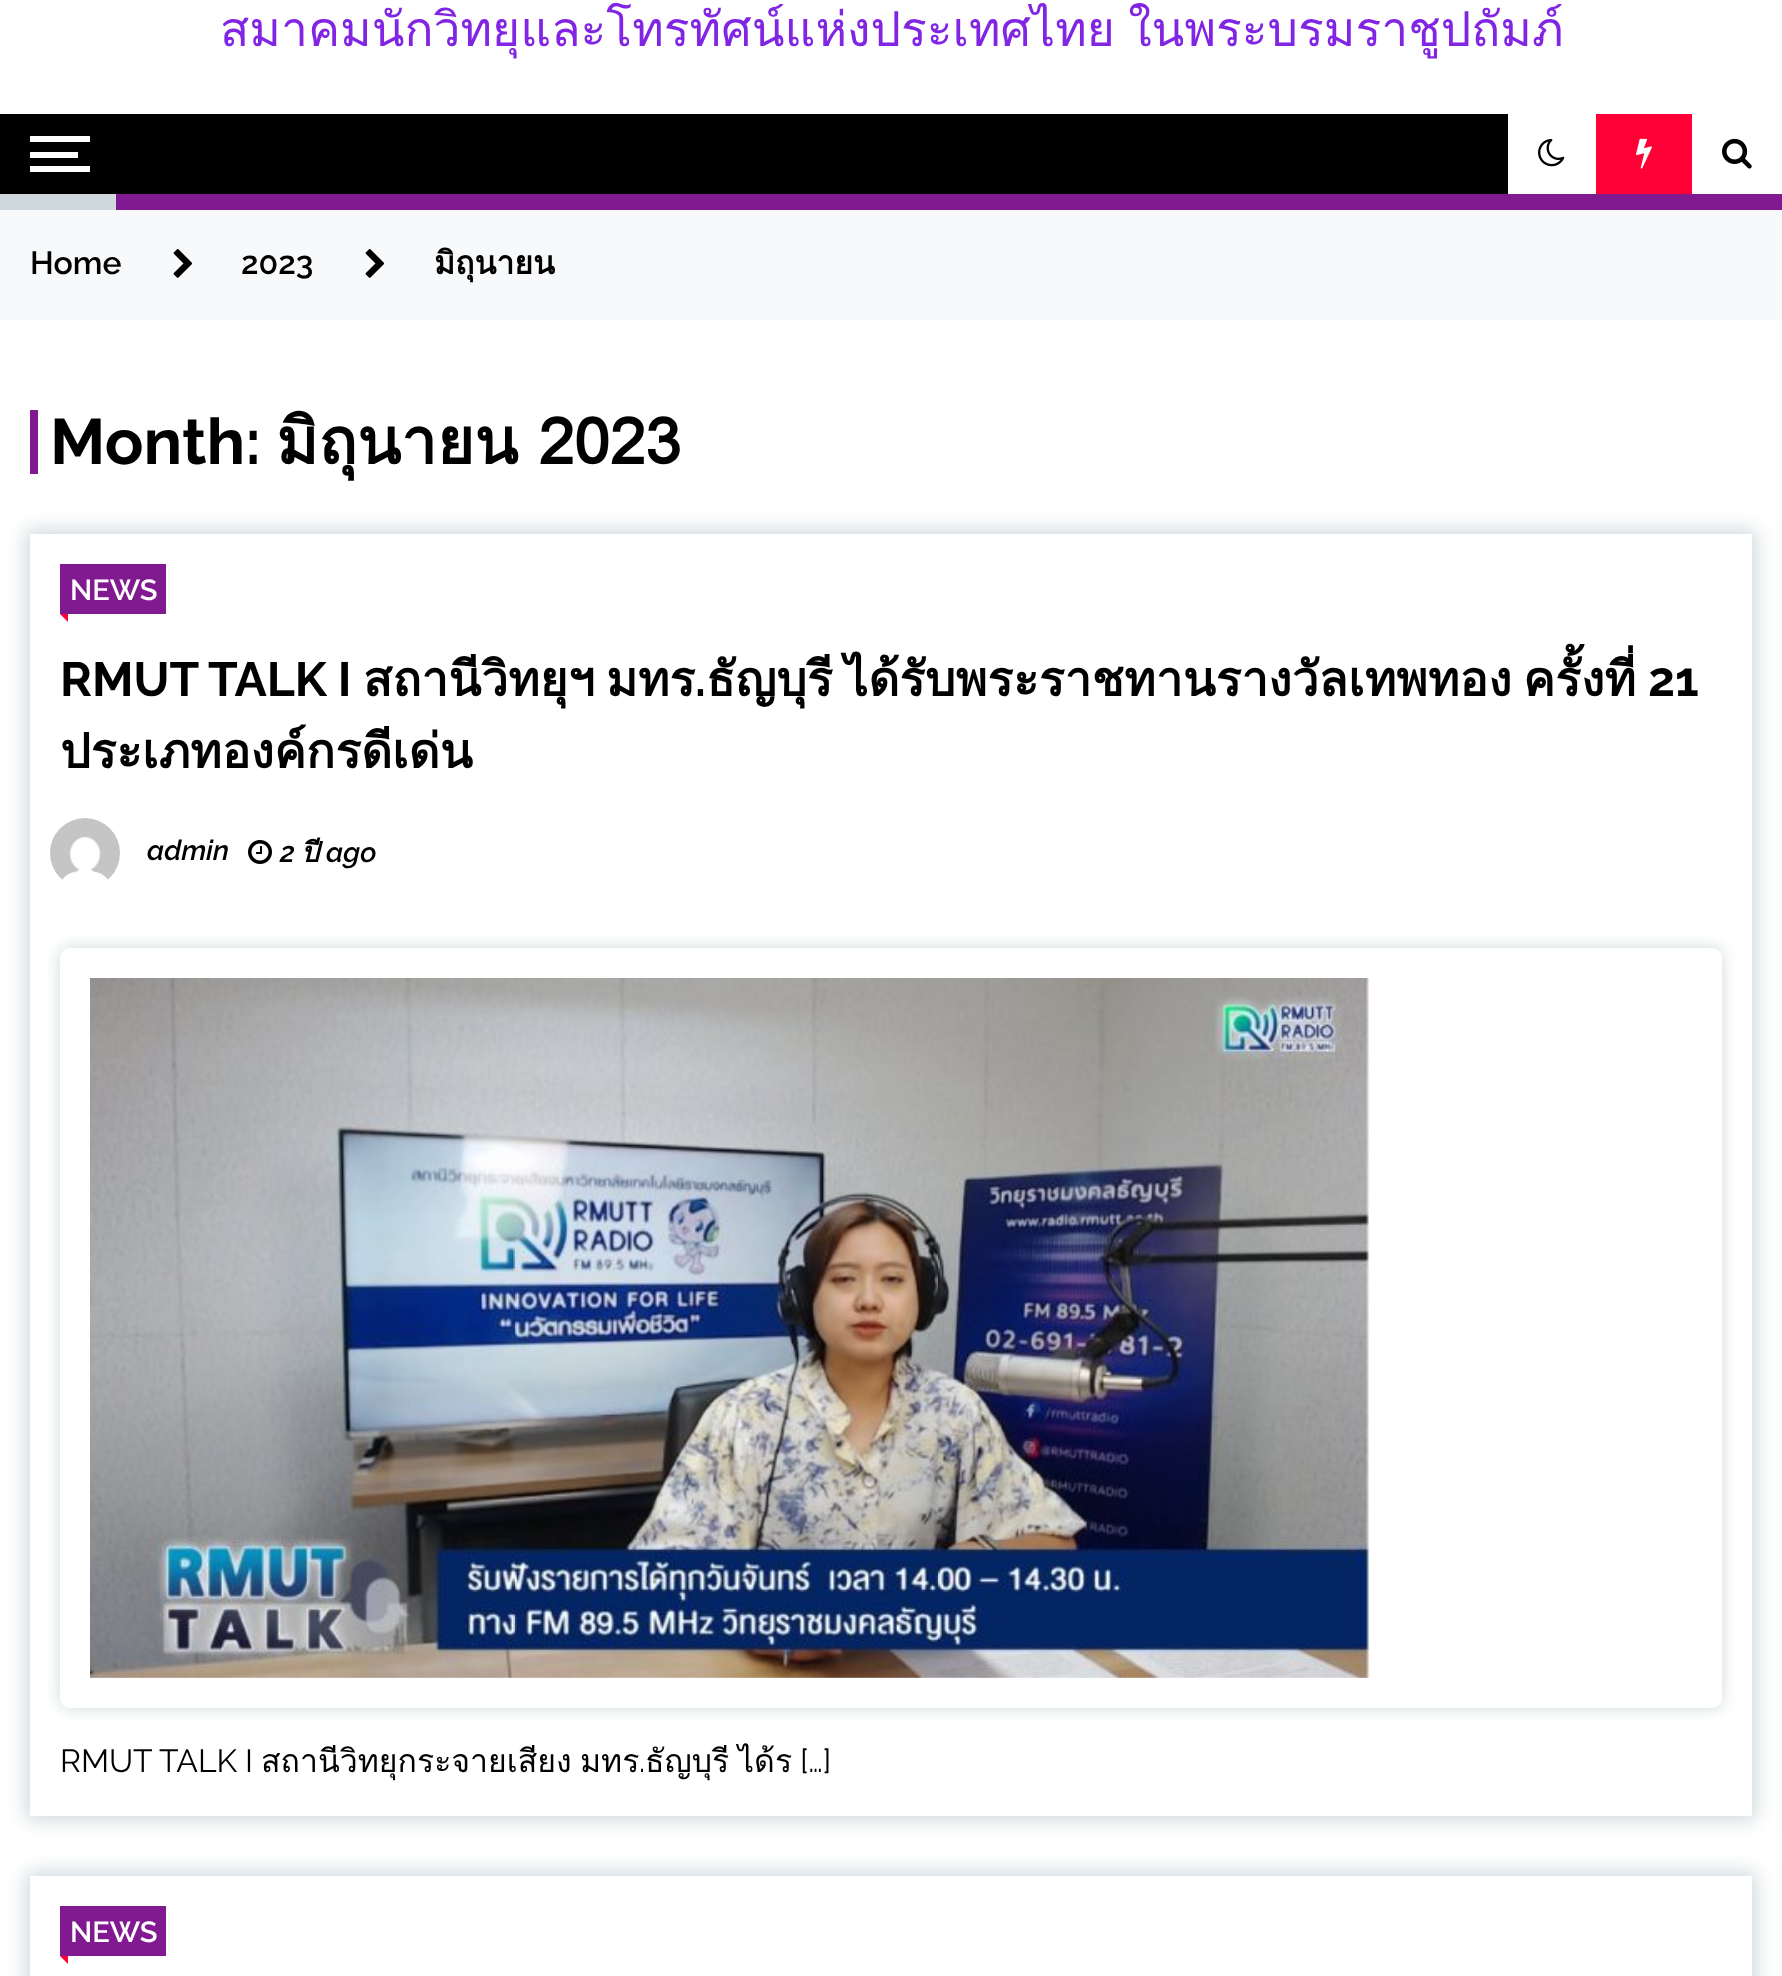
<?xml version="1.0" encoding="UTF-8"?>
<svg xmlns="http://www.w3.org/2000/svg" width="1782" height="1976">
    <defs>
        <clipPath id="clip1"><path d="M 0 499 H 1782 V 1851 H 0 Z M 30 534 H 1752 V 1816 H 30 Z" clip-rule="evenodd"/></clipPath>
        <filter id="blur1" x="-50%" y="-200%" width="200%" height="500%"><feGaussianBlur stdDeviation="10"/></filter>
        <clipPath id="clip2"><path d="M 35 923 H 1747 V 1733 H 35 Z M 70 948 H 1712 C 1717.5 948 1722 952.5 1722 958 V 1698 C 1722 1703.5 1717.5 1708 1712 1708 H 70 C 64.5 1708 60 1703.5 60 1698 V 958 C 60 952.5 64.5 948 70 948 Z" clip-rule="evenodd"/></clipPath>
        <filter id="blur2" x="-50%" y="-200%" width="200%" height="500%"><feGaussianBlur stdDeviation="8"/></filter>
        <clipPath id="clip3"><path d="M 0 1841 H 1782 V 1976 H 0 Z M 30 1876 H 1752 V 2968 H 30 Z" clip-rule="evenodd"/></clipPath>
    </defs>
    <rect width="100%" height="100%" fill="#FFFFFF"/>
    <text x="220" y="46" word-spacing="-3" font-family="Loma" font-size="48" fill="#8224E3">สมาคมนักวิทยุและโทรทัศน์แห่งประเทศไทย ในพระบรมราชูปถัมภ์</text>
    <rect x="0" y="114" width="1508" height="80" fill="#000000"/>
    <rect x="30" y="136" width="60" height="6" fill="#FFFFFF"/>
    <rect x="30" y="166" width="60" height="6" fill="#FFFFFF"/>
    <rect x="30" y="152" width="48" height="6" fill="#FFFFFF"/>
    <image x="1538" y="138" width="27" height="29" href="img_01.png"/>
    <rect x="1596" y="114" width="96" height="80" fill="#FF0036"/>
    <image x="1636" y="138" width="16" height="31" href="img_02.png"/>
    <image x="1722" y="138" width="30" height="31" href="img_03.png"/>
    <rect x="0" y="194" width="116" height="16" fill="#CFD8DC"/>
    <rect x="116" y="194" width="1666" height="16" fill="#811A90"/>
    <rect x="0" y="210" width="1782" height="110" fill="#F8F9FA"/>
    <text x="30" y="274" font-family="Raleway" font-size="32" font-weight="600" fill="#000000">Home</text>
    <image x="173" y="249" width="20" height="29" href="img_04.png"/>
    <text x="241" y="274" font-family="Raleway" font-size="32" font-weight="600" fill="#000000">2023</text>
    <image x="365" y="249" width="20" height="29" href="img_04.png"/>
    <text x="434" y="274" font-family="Loma" font-size="32" font-weight="700" fill="#000000">มิถุนายน</text>
    <rect x="30" y="410" width="8" height="64" fill="#811A90"/>
    <text x="50" y="464" font-family="Raleway" font-size="64" font-weight="700" fill="#000000">Month:</text>
    <text x="276" y="464" word-spacing="-1" font-family="Loma" font-size="64" font-weight="700" fill="#000000">มิถุนายน 2023</text>
    <g clip-path="url(#clip1)">
        <rect x="26" y="530" width="1730" height="1290" fill="#CFD8DC" filter="url(#blur1)"/>
    </g>
    <rect x="60" y="564" width="106" height="50" fill="#811A90"/>
    <text x="70" y="600" font-family="Raleway" font-size="29" font-weight="600" fill="#FFFFFF">NEWS</text>
    <path d="M 68 614 V 622 L 60 614 Z" fill="#FF0036"/>
    <text x="60" y="696" font-family="Raleway" font-size="48" font-weight="700" fill="#000000">RMUT TALK I</text>
    <text x="363" y="696" font-family="Loma" font-size="48" font-weight="700" fill="#000000">สถานีวิทยุฯ</text>
    <text x="606" y="696" font-family="Loma" font-size="48" font-weight="700" fill="#000000">มทร</text>
    <text x="695" y="696" font-family="Raleway" font-size="48" font-weight="700" fill="#000000">.</text>
    <text x="706" y="696" font-family="Loma" font-size="48" font-weight="700" fill="#000000">ธัญบุรี</text>
    <text x="844" y="696" font-family="Loma" font-size="48" font-weight="700" fill="#000000">ได้รับพระราชทานรางวัลเทพทอง</text>
    <text x="1523" y="696" font-family="Loma" font-size="48" font-weight="700" fill="#000000">ครั้งที่</text>
    <text x="1648" y="696" font-family="Raleway" font-size="48" font-weight="700" fill="#000000">21</text>
    <text x="60" y="768" font-family="Loma" font-size="48" font-weight="700" fill="#000000">ประเภทองค์กรดีเด่น</text>
    <image x="50" y="818" width="70" height="62" href="img_05.png"/>
    <text x="147" y="860" font-family="Raleway" font-size="28" font-weight="600" font-style="italic" fill="#000000">admin</text>
    <image x="248" y="840" width="24" height="24" href="img_06.png"/>
    <text x="280" y="862" font-family="Raleway" font-size="28" font-weight="600" font-style="italic" fill="#000000">2</text>
    <text x="301" y="862" font-family="Loma" font-size="28" font-weight="700" font-style="italic" fill="#000000">ปี</text>
    <text x="326" y="862" font-family="Raleway" font-size="28" font-weight="600" font-style="italic" fill="#000000">ago</text>
    <g clip-path="url(#clip2)">
        <rect x="60" y="948" width="1662" height="760" rx="10" fill="#CFD8DC" filter="url(#blur2)"/>
    </g>
    <image x="90" y="978" width="1280" height="700" href="img_07.png"/>
    <text x="60" y="1772" font-family="Raleway" font-size="32" fill="#000000">RMUT TALK I</text>
    <text x="261" y="1772" font-family="Loma" font-size="32" fill="#000000">สถานีวิทยุกระจายเสียง</text>
    <text x="580" y="1772" font-family="Loma" font-size="32" fill="#000000">มทร</text>
    <text x="639" y="1772" font-family="Raleway" font-size="32" fill="#000000">.</text>
    <text x="645" y="1772" font-family="Loma" font-size="32" fill="#000000">ธัญบุรี</text>
    <text x="738" y="1772" font-family="Loma" font-size="32" fill="#000000">ได้ร</text>
    <text x="800" y="1772" font-family="Raleway" font-size="32" fill="#000000">[…]</text>
    <g clip-path="url(#clip3)">
        <rect x="26" y="1872" width="1730" height="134" fill="#CFD8DC" filter="url(#blur1)"/>
    </g>
    <rect x="60" y="1906" width="106" height="50" fill="#811A90"/>
    <text x="70" y="1942" font-family="Raleway" font-size="29" font-weight="600" fill="#FFFFFF">NEWS</text>
    <path d="M 68 1956 V 1964 L 60 1956 Z" fill="#FF0036"/>
</svg>
